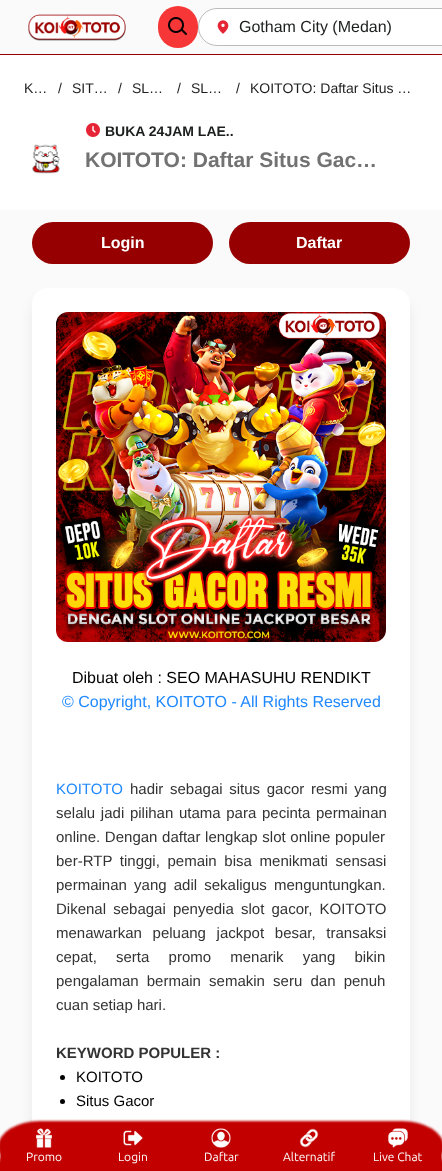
<?xml version="1.0" encoding="UTF-8"?>
<svg xmlns="http://www.w3.org/2000/svg" width="442" height="1171">
    <defs>
        <filter id="blur1" x="-50%" y="-200%" width="200%" height="500%"><feGaussianBlur stdDeviation="7.5"/></filter>
        <filter id="blur2" x="-50%" y="-200%" width="200%" height="500%"><feGaussianBlur stdDeviation="1"/></filter>
    </defs>
    <rect width="100%" height="100%" fill="#FFFFFF"/>
    <rect x="0" y="0" width="442" height="54" fill="#FAFAFA"/>
    <rect x="0" y="54" width="442" height="1" fill="#960000"/>
    <image x="28" y="14" width="98" height="27" href="img_01.png"/>
    <rect x="158" y="6" width="40" height="42" rx="20" fill="#F73737"/>
    <image x="168" y="17" width="19" height="18" href="img_02.png"/>
    <rect x="198.5" y="8.5" width="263" height="37" rx="18.5" fill="#FFFFFF" stroke="#BBBBBB"/>
    <image x="217" y="20" width="12" height="14" href="img_03.png"/>
    <text x="239" y="32" font-family="Liberation Sans" font-size="16" fill="#1C1D1D">Gotham City (Medan)</text>
    <text x="24" y="93" font-family="Liberation Sans" font-size="14" fill="#1C1D1D">K…</text>
    <text x="58" y="93" font-family="Liberation Sans" font-size="14" fill="#1C1D1D">/</text>
    <text x="72" y="93" font-family="Liberation Sans" font-size="14" fill="#1C1D1D">SIT…</text>
    <text x="118" y="93" font-family="Liberation Sans" font-size="14" fill="#1C1D1D">/</text>
    <text x="132" y="93" font-family="Liberation Sans" font-size="14" fill="#1C1D1D">SL…</text>
    <text x="177" y="93" font-family="Liberation Sans" font-size="14" fill="#1C1D1D">/</text>
    <text x="191" y="93" font-family="Liberation Sans" font-size="14" fill="#1C1D1D">SL…</text>
    <text x="236" y="93" font-family="Liberation Sans" font-size="14" fill="#1C1D1D">/</text>
    <text x="250" y="93" font-family="Liberation Sans" font-size="14" fill="#1C1D1D">KOITOTO: Daftar Situs …</text>
    <image x="32" y="144" width="28" height="30" href="img_04.png"/>
    <image x="86" y="123" width="14" height="14" href="img_05.png"/>
    <text x="105" y="136" font-family="Liberation Sans" font-size="14" font-weight="700" fill="#1C1D1D">BUKA 24JAM LAE..</text>
    <text x="85" y="167" font-family="Liberation Sans" font-size="21" font-weight="700" fill="#727272">KOITOTO: Daftar Situs Gac…</text>
    <rect x="0" y="210" width="442" height="953" fill="#FAFAFA"/>
    <rect x="32" y="222" width="181" height="42" rx="21" fill="#960000"/>
    <text x="101" y="248" font-family="Liberation Sans" font-size="16" font-weight="700" fill="#FFFFFF">Login</text>
    <rect x="229" y="222" width="181" height="42" rx="21" fill="#960000"/>
    <text x="296" y="248" font-family="Liberation Sans" font-size="16" font-weight="700" fill="#FFFFFF">Daftar</text>
    <rect x="35" y="301" width="372" height="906" rx="13" fill="#000000" fill-opacity="0.1" filter="url(#blur1)"/>
    <rect x="32" y="288" width="378" height="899" rx="16" fill="#FFFFFF"/>
    <image x="56" y="312" width="330" height="330" href="img_06.png"/>
    <text x="72" y="683" font-family="Liberation Sans" font-size="16" fill="#000000">Dibuat oleh : SEO MAHASUHU RENDIKT</text>
    <text x="62" y="707" font-family="Liberation Sans" font-size="16" fill="#2189FF">© Copyright, KOITOTO - All Rights Reserved</text>
    <text x="56" y="794" font-family="Liberation Sans" font-size="15" fill="#2189FF">KOITOTO</text>
    <text x="130" y="794" word-spacing="2.5" font-family="Liberation Sans" font-size="15" fill="#333333">hadir sebagai situs gacor resmi yang</text>
    <text font-family="Liberation Sans" font-size="15" fill="#333333">
        <tspan x="56" y="818" word-spacing="1.5">selalu jadi pilihan utama para pecinta permainan</tspan>
        <tspan x="56" y="842" word-spacing="0.5">online. Dengan daftar lengkap slot online populer</tspan>
        <tspan x="56" y="866" word-spacing="3.5">ber-RTP tinggi, pemain bisa menikmati sensasi</tspan>
        <tspan x="56" y="890" word-spacing="3">permainan yang adil sekaligus menguntungkan.</tspan>
        <tspan x="56" y="914" word-spacing="3">Dikenal sebagai penyedia slot gacor, KOITOTO</tspan>
        <tspan x="56" y="938" word-spacing="6.5">menawarkan peluang jackpot besar, transaksi</tspan>
        <tspan x="56" y="962" word-spacing="15">cepat, serta promo menarik yang bikin</tspan>
        <tspan x="56" y="986" word-spacing="4">pengalaman bermain semakin seru dan penuh</tspan>
        <tspan x="56" y="1010">cuan setiap hari.</tspan>
    </text>
    <text x="56" y="1058" font-family="Liberation Sans" font-size="15" font-weight="700" fill="#333333">KEYWORD POPULER :</text>
    <circle cx="62.5" cy="1077.5" r="2.5" fill="#000000"/>
    <text x="76" y="1082" font-family="Liberation Sans" font-size="15" fill="#000000">KOITOTO</text>
    <circle cx="62.5" cy="1101.5" r="2.5" fill="#000000"/>
    <text x="76" y="1106" font-family="Liberation Sans" font-size="15" fill="#000000">Situs Gacor</text>
    <rect x="-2" y="1121" width="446" height="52" rx="42" fill="#C20000" filter="url(#blur2)"/>
    <path d="M 40 1123 H 402 C 424 1123 442 1141 442 1163 V 1171 H 0 V 1163 C 0 1141 18 1123 40 1123 Z" fill="#C20000"/>
    <image x="36" y="1128" width="16" height="20" href="img_07.png"/>
    <text x="26" y="1161" font-family="Ubuntu" font-size="12" fill="#FFFFFF">Promo</text>
    <image x="123" y="1130" width="20" height="16" href="img_08.png"/>
    <text x="118" y="1161" font-family="Ubuntu" font-size="12" fill="#FFFFFF">Login</text>
    <image x="211" y="1128" width="20" height="20" href="img_09.png"/>
    <text x="204" y="1161" font-family="Ubuntu" font-size="12" fill="#FFFFFF">Daftar</text>
    <image x="299" y="1128" width="20" height="20" href="img_10.png"/>
    <text x="283" y="1161" font-family="Ubuntu" font-size="12" fill="#FFFFFF">Alternatif</text>
    <image x="388" y="1128" width="20" height="20" href="img_11.png"/>
    <text x="373" y="1161" font-family="Ubuntu" font-size="12" fill="#FFFFFF">Live Chat</text>
</svg>
